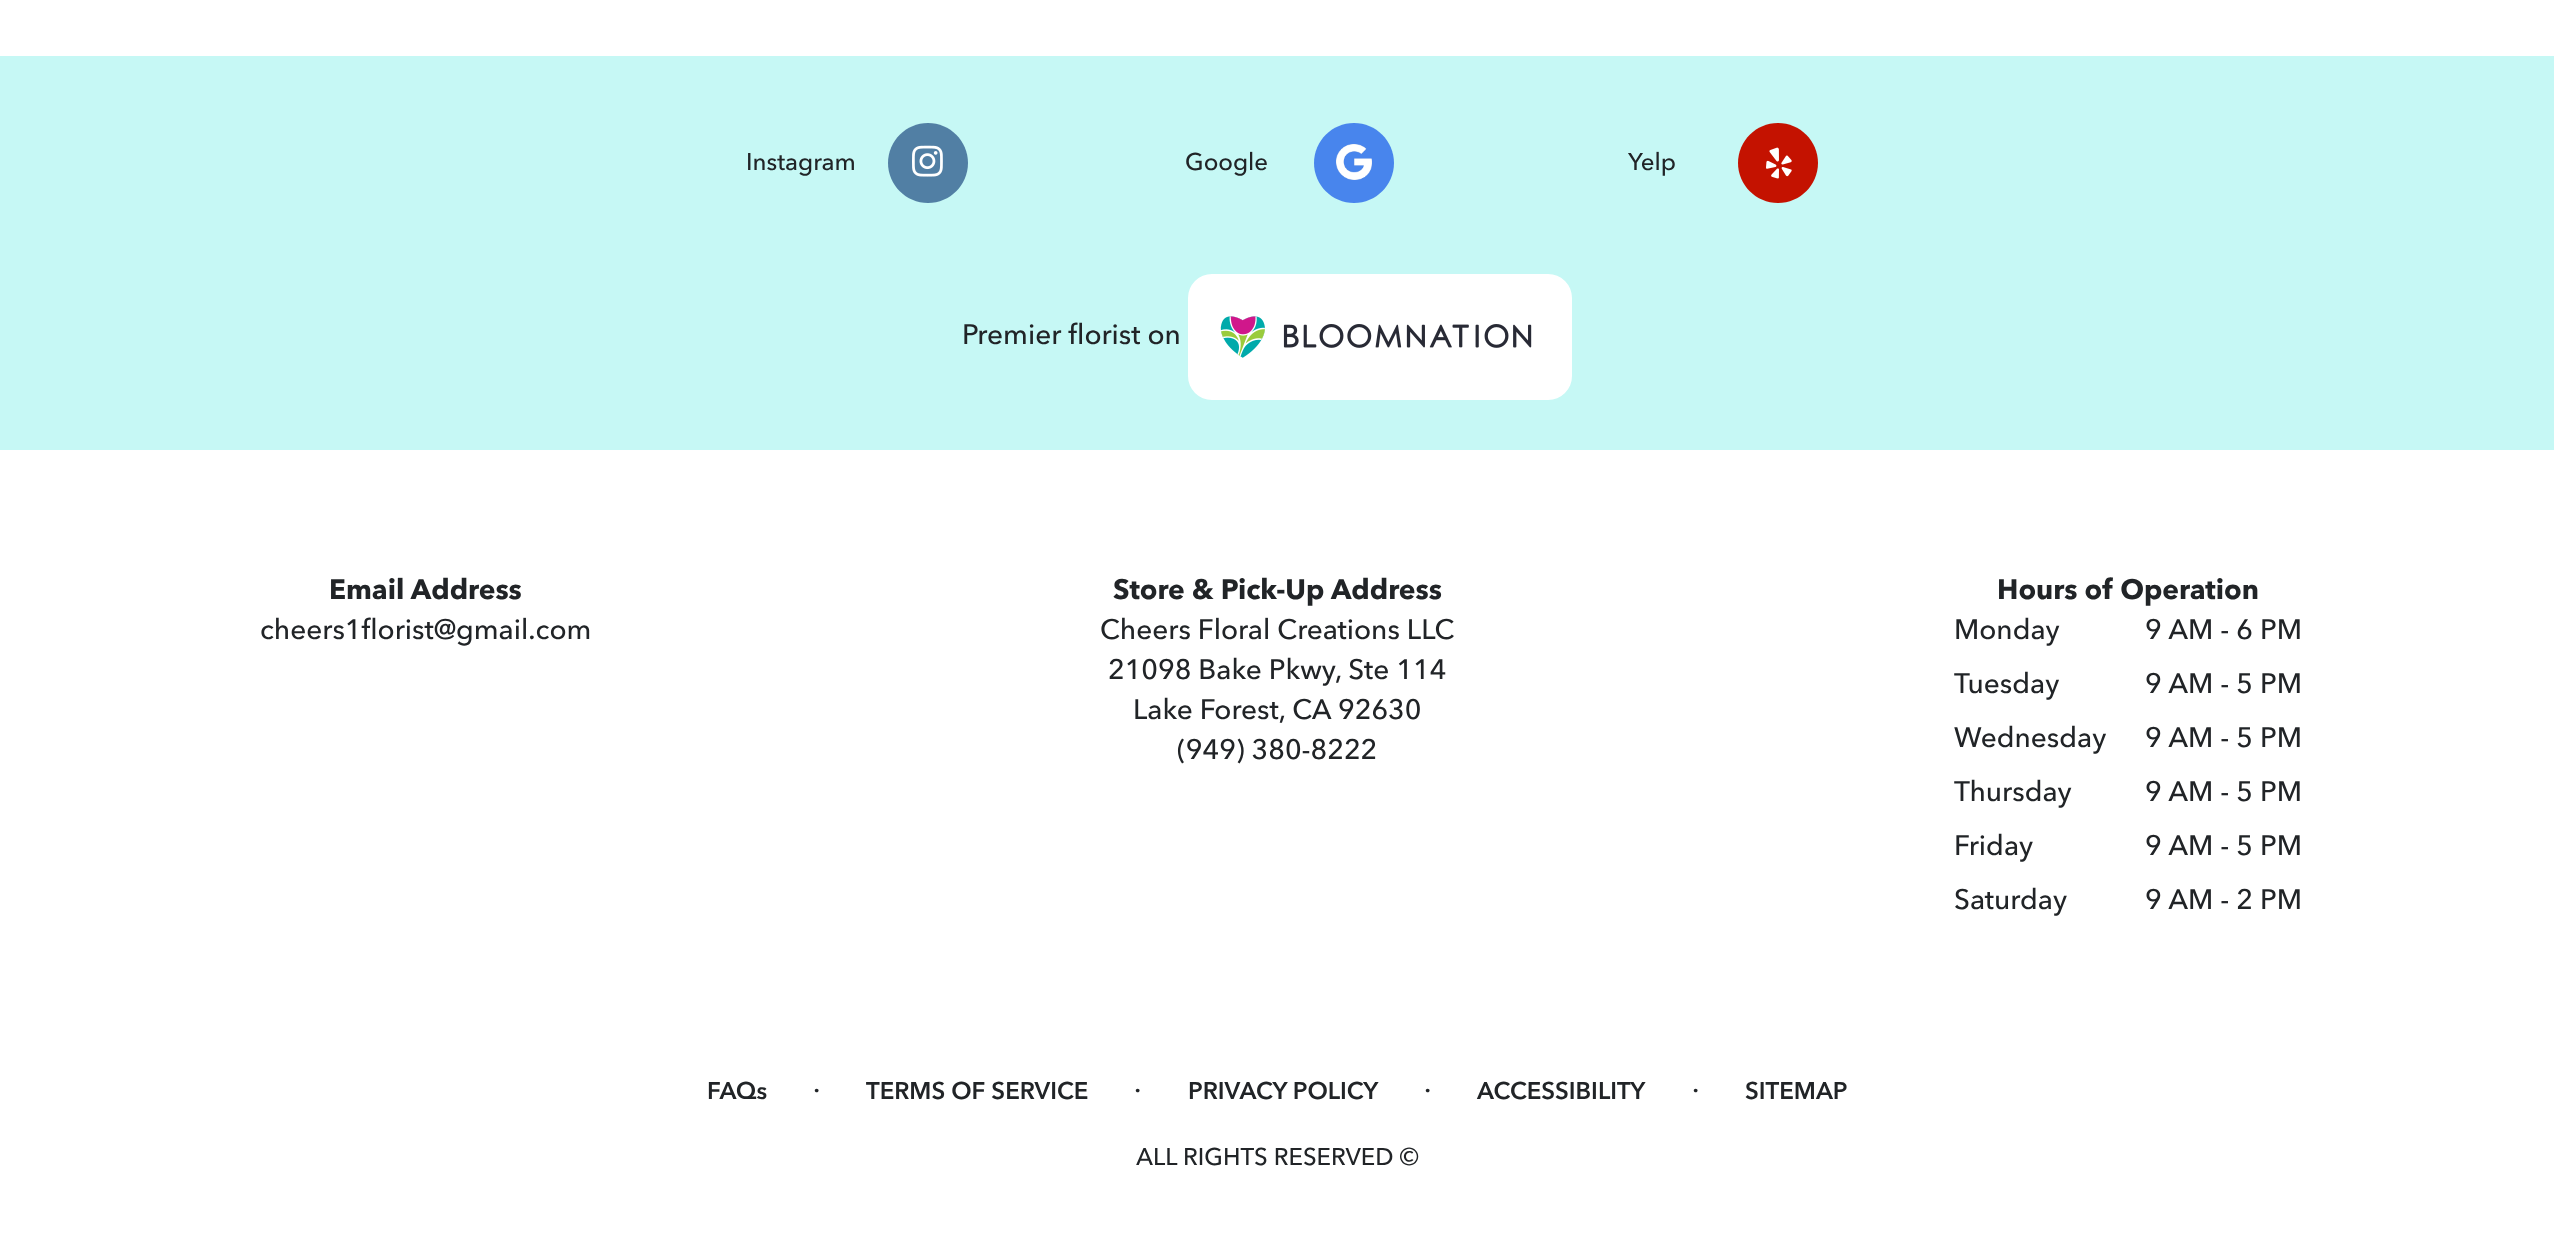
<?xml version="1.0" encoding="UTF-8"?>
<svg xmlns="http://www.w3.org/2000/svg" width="2554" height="1256">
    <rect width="100%" height="100%" fill="#FFFFFF"/>
    <rect x="0" y="56" width="2554" height="394" fill="#C6F8F5"/>
    <text x="746" y="170" font-family="Avenir Next" font-size="24" font-weight="500" fill="#212427">Instagram</text>
    <path d="M 968 163 C 968 141 950 123 928 123 C 906 123 888 141 888 163 C 888 185 906 203 928 203 C 950 203 968 185 968 163 Z" fill="#517FA4"/>
    <image x="912" y="145" width="31" height="32" href="img_01.png"/>
    <text x="1185" y="170" font-family="Avenir Next" font-size="24" font-weight="500" fill="#212427">Google</text>
    <path d="M 1394 163 C 1394 141 1376 123 1354 123 C 1332 123 1314 141 1314 163 C 1314 185 1332 203 1354 203 C 1376 203 1394 185 1394 163 Z" fill="#4885ED"/>
    <image x="1336" y="144" width="36" height="36" href="img_02.png"/>
    <text x="1628" y="170" font-family="Avenir Next" font-size="24" font-weight="500" fill="#212427">Yelp</text>
    <path d="M 1818 163 C 1818 141 1800 123 1778 123 C 1756 123 1738 141 1738 163 C 1738 185 1756 203 1778 203 C 1800 203 1818 185 1818 163 Z" fill="#C41200"/>
    <image x="1766" y="147" width="26" height="32" href="img_03.png"/>
    <text x="962" y="344" font-family="Avenir Next" font-size="28" font-weight="500" fill="#212427">Premier florist on</text>
    <rect x="1188" y="274" width="384" height="126" rx="24" fill="#FFFFFF"/>
    <image x="1220" y="316" width="312" height="42" href="img_04.png"/>
    <text x="329" y="599" font-family="Avenir Next" font-size="28" font-weight="700" fill="#212427">Email Address</text>
    <text x="260" y="639" font-family="Avenir Next" font-size="28" font-weight="500" fill="#212427">cheers1florist@gmail.com</text>
    <text x="1113" y="599" font-family="Avenir Next" font-size="28" font-weight="700" fill="#212427">Store &amp; Pick-Up Address</text>
    <text x="1100" y="639" font-family="Avenir Next" font-size="28" font-weight="500" fill="#212427">Cheers Floral Creations LLC</text>
    <text x="1108" y="679" font-family="Avenir Next" font-size="28" font-weight="500" fill="#212427">21098 Bake Pkwy, Ste 114</text>
    <text x="1133" y="719" font-family="Avenir Next" font-size="28" font-weight="500" fill="#212427">Lake Forest, CA 92630</text>
    <text x="1177" y="759" font-family="Avenir Next" font-size="28" font-weight="500" fill="#212427">(949) 380-8222</text>
    <text x="1997" y="599" font-family="Avenir Next" font-size="28" font-weight="700" fill="#212427">Hours of Operation</text>
    <text x="1954" y="639" font-family="Avenir Next" font-size="28" font-weight="500" fill="#212427">Monday</text>
    <text x="2145" y="639" font-family="Avenir Next" font-size="28" font-weight="500" fill="#212427">9 AM - 6 PM</text>
    <text x="1954" y="693" font-family="Avenir Next" font-size="28" font-weight="500" fill="#212427">Tuesday</text>
    <text x="2145" y="693" font-family="Avenir Next" font-size="28" font-weight="500" fill="#212427">9 AM - 5 PM</text>
    <text x="1954" y="747" font-family="Avenir Next" font-size="28" font-weight="500" fill="#212427">Wednesday</text>
    <text x="2145" y="747" font-family="Avenir Next" font-size="28" font-weight="500" fill="#212427">9 AM - 5 PM</text>
    <text x="1954" y="801" font-family="Avenir Next" font-size="28" font-weight="500" fill="#212427">Thursday</text>
    <text x="2145" y="801" font-family="Avenir Next" font-size="28" font-weight="500" fill="#212427">9 AM - 5 PM</text>
    <text x="1954" y="855" font-family="Avenir Next" font-size="28" font-weight="500" fill="#212427">Friday</text>
    <text x="2145" y="855" font-family="Avenir Next" font-size="28" font-weight="500" fill="#212427">9 AM - 5 PM</text>
    <text x="1954" y="909" font-family="Avenir Next" font-size="28" font-weight="500" fill="#212427">Saturday</text>
    <text x="2145" y="909" font-family="Avenir Next" font-size="28" font-weight="500" fill="#212427">9 AM - 2 PM</text>
    <text x="707" y="1099" font-family="Avenir Next" font-size="24" font-weight="600" fill="#212427">FAQs</text>
    <text x="813" y="1099" font-family="Avenir Next" font-size="28" font-weight="500" fill="#212427">·</text>
    <text x="866" y="1099" font-family="Avenir Next" font-size="24" font-weight="600" fill="#212427">TERMS OF SERVICE</text>
    <text x="1134" y="1099" font-family="Avenir Next" font-size="28" font-weight="500" fill="#212427">·</text>
    <text x="1188" y="1099" font-family="Avenir Next" font-size="24" font-weight="600" fill="#212427">PRIVACY POLICY</text>
    <text x="1424" y="1099" font-family="Avenir Next" font-size="28" font-weight="500" fill="#212427">·</text>
    <text x="1477" y="1099" font-family="Avenir Next" font-size="24" font-weight="600" fill="#212427">ACCESSIBILITY</text>
    <text x="1692" y="1099" font-family="Avenir Next" font-size="28" font-weight="500" fill="#212427">·</text>
    <text x="1745" y="1099" font-family="Avenir Next" font-size="24" font-weight="600" fill="#212427">SITEMAP</text>
    <text x="1136" y="1165" font-family="Avenir Next" font-size="24" font-weight="500" fill="#212427">ALL RIGHTS RESERVED ©</text>
</svg>
